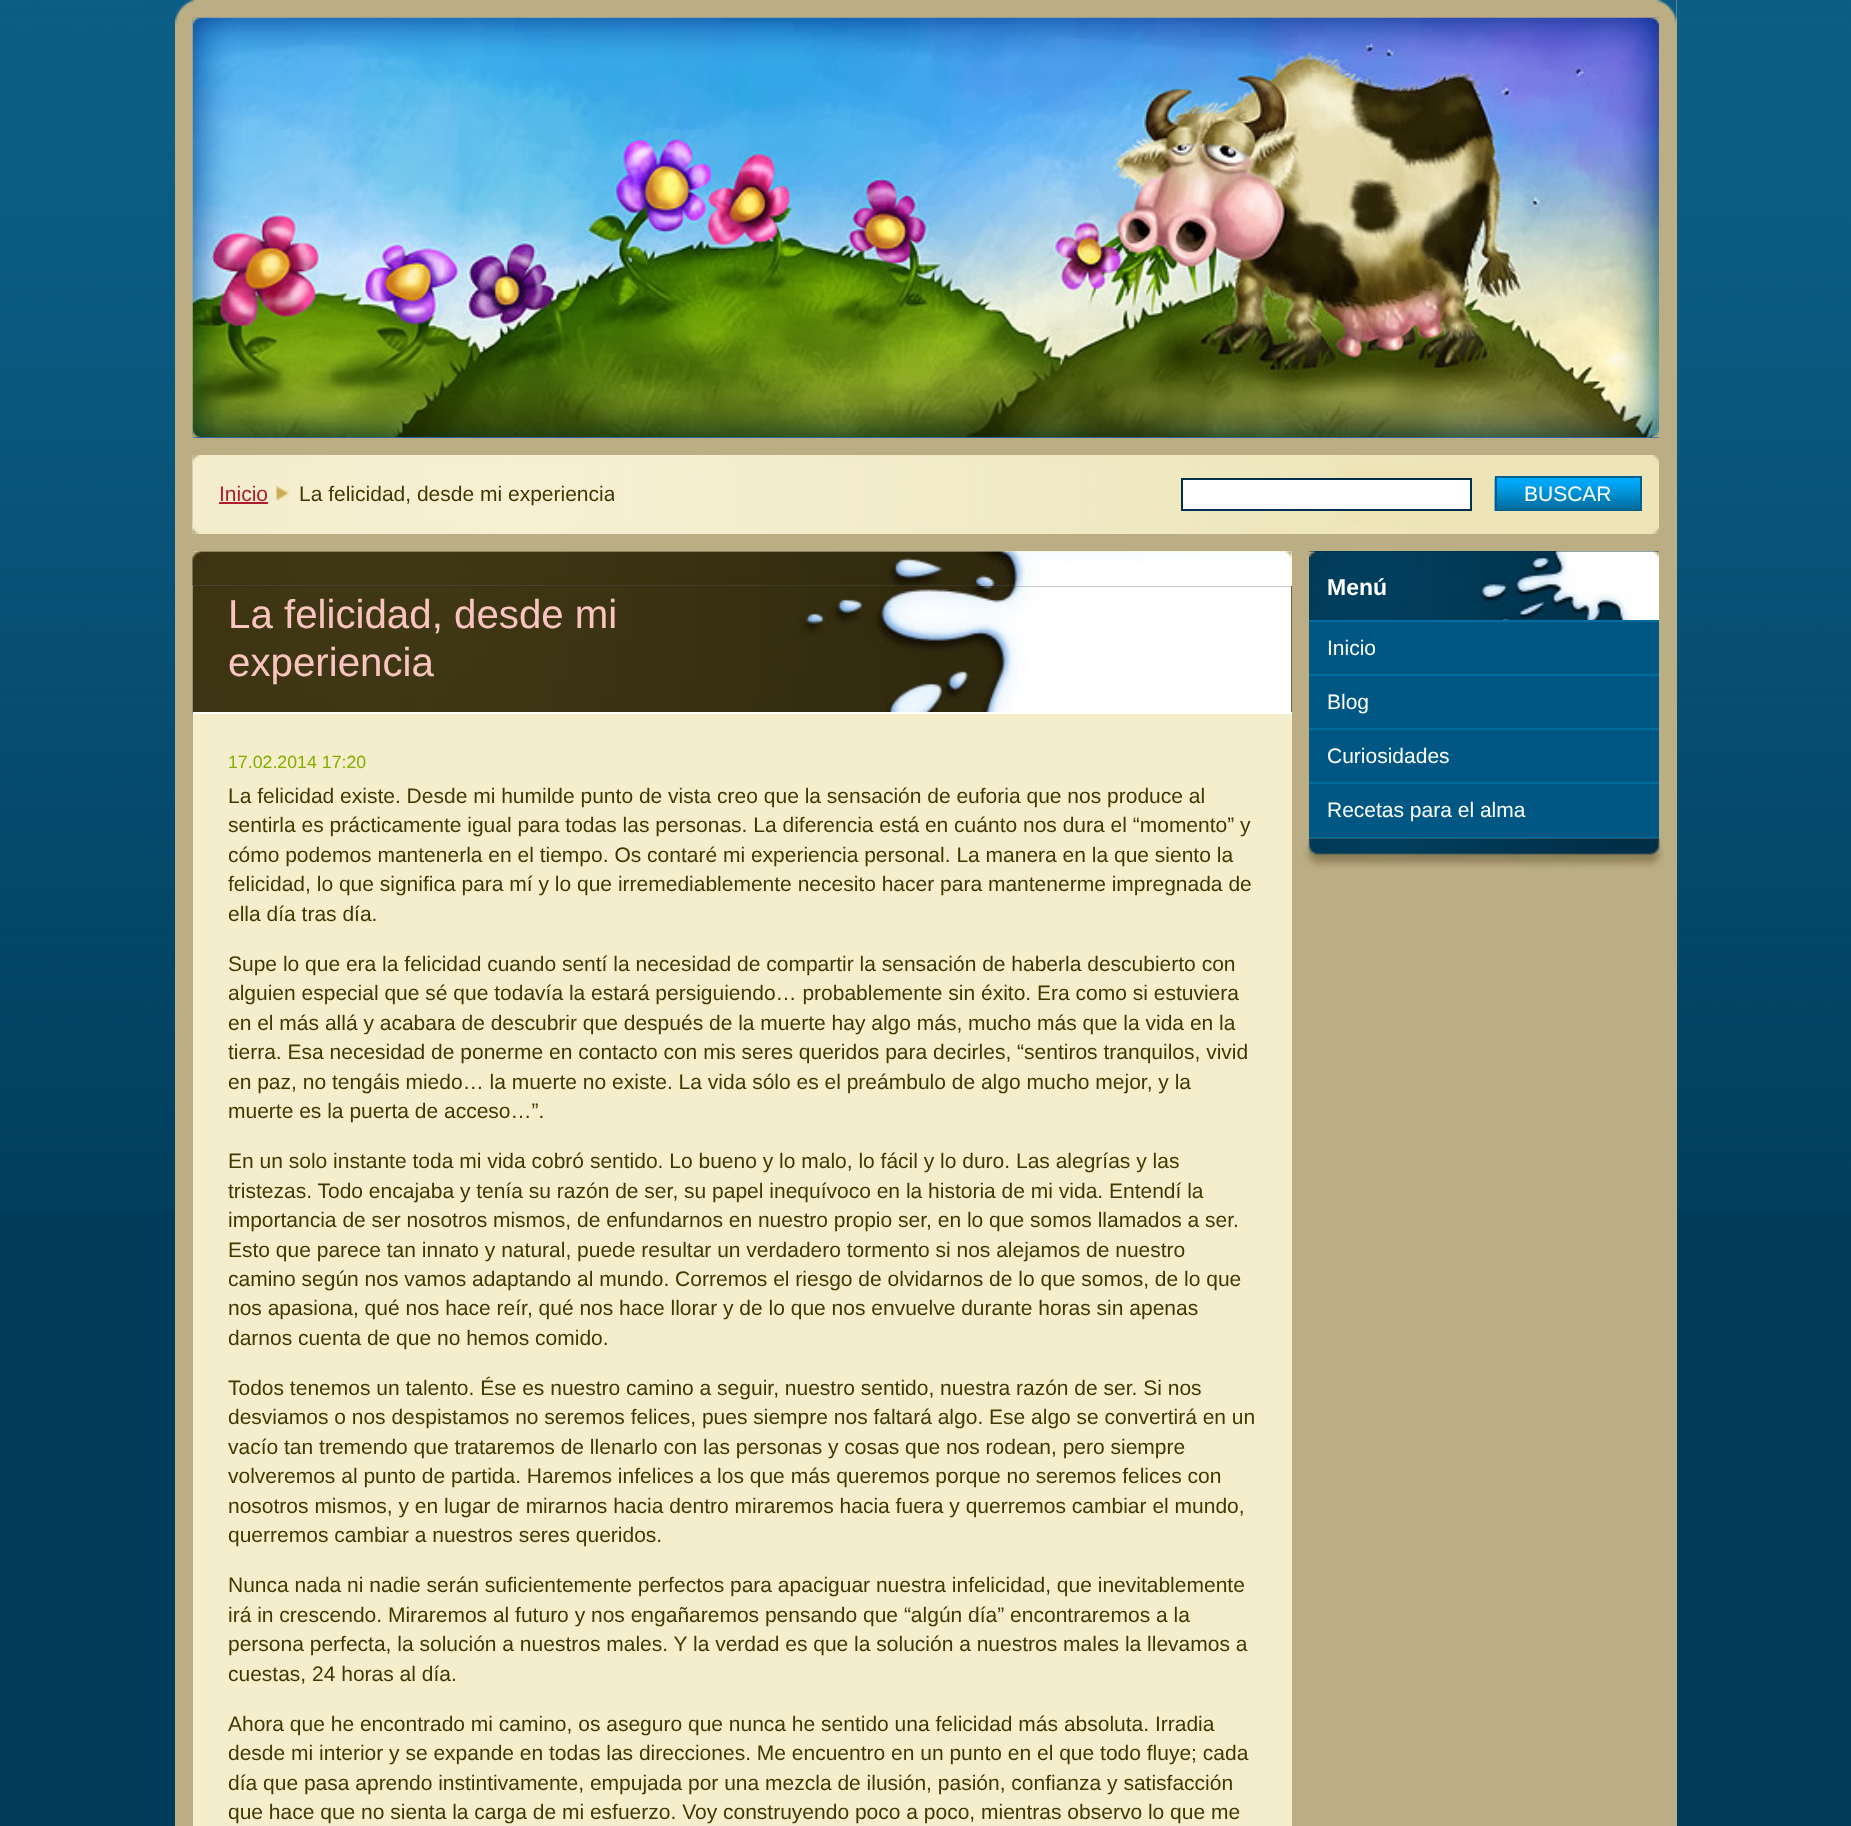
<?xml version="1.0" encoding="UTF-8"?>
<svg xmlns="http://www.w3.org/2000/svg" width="1851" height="1826">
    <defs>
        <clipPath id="clip1"><rect x="193" y="476" width="421" height="37"/></clipPath>
    </defs>
    <rect width="100%" height="100%" fill="#003C5A"/>
    <image x="0" y="0" width="1851" height="1211" href="img_01.png"/>
    <rect x="175" y="0" width="1502" height="1826" fill="#BCAE84"/>
    <image x="175" y="0" width="1502" height="25" href="img_02.png"/>
    <rect x="193" y="437" width="1466" height="1" fill="#266FBC"/>
    <image x="192" y="17" width="1467" height="421" href="img_03.png"/>
    <image x="192" y="17" width="1467" height="421" href="img_04.png"/>
    <rect x="193" y="463" width="1466" height="71" fill="#EDE4B8"/>
    <image x="192" y="455" width="1145" height="79" href="img_05.png"/>
    <image x="192" y="525" width="1467" height="9" href="img_06.png"/>
    <image x="192" y="455" width="1467" height="9" href="img_07.png"/>
    <text x="219" y="501" font-family="Liberation Sans" font-size="21" fill="#AF1B2C">Inicio</text>
    <rect x="219" y="502" width="49" height="2" fill="#AF1B2C"/>
    <image x="276" y="486" width="13" height="15" href="img_08.png"/>
    <g clip-path="url(#clip1)">
        <text x="299" y="501" font-family="Liberation Sans" font-size="21" fill="#433700">La felicidad, desde mi experiencia</text>
    </g>
    <rect x="1182" y="479" width="289" height="31" fill="#FFFFFF" stroke="#00314C" stroke-width="2"/>
    <image x="1494" y="477" width="146" height="34" href="img_09.png"/>
    <rect x="1496" y="477" width="145" height="33" fill="none" stroke="#005F8C" stroke-width="2"/>
    <text x="1524" y="501" font-family="Liberation Sans" font-size="21" fill="#FFFFFF">BUSCAR</text>
    <rect x="193" y="551" width="1099" height="1275" fill="#F4EECD"/>
    <image x="192" y="551" width="1100" height="37" href="img_10.png"/>
    <rect x="193" y="586" width="1099" height="126" fill="#382F10"/>
    <image x="192" y="586" width="1100" height="128" href="img_11.png"/>
    <rect x="193" y="712" width="1099" height="2" fill="#FFFFFF"/>
    <text font-family="Liberation Sans" font-size="40.25" fill="#FAC4C0">
        <tspan x="228" y="628">La felicidad, desde mi</tspan>
        <tspan x="228" y="676">experiencia</tspan>
    </text>
    <text x="228" y="768" font-family="Liberation Sans" font-size="17.75" fill="#83AE00">17.02.2014 17:20</text>
    <text font-family="Liberation Sans" font-size="21" fill="#433700">
        <tspan x="228" y="803">La felicidad existe. Desde mi humilde punto de vista creo que la sensación de euforia que nos produce al</tspan>
        <tspan x="228" y="832">sentirla es prácticamente igual para todas las personas. La diferencia está en cuánto nos dura el “momento” y</tspan>
        <tspan x="228" y="862">cómo podemos mantenerla en el tiempo. Os contaré mi experiencia personal. La manera en la que siento la</tspan>
        <tspan x="228" y="891">felicidad, lo que significa para mí y lo que irremediablemente necesito hacer para mantenerme impregnada de</tspan>
        <tspan x="228" y="921">ella día tras día.</tspan>
    </text>
    <text font-family="Liberation Sans" font-size="21" fill="#433700">
        <tspan x="228" y="971">Supe lo que era la felicidad cuando sentí la necesidad de compartir la sensación de haberla descubierto con</tspan>
        <tspan x="228" y="1000">alguien especial que sé que todavía la estará persiguiendo… probablemente sin éxito. Era como si estuviera</tspan>
        <tspan x="228" y="1030">en el más allá y acabara de descubrir que después de la muerte hay algo más, mucho más que la vida en la</tspan>
        <tspan x="228" y="1059">tierra. Esa necesidad de ponerme en contacto con mis seres queridos para decirles, “sentiros tranquilos, vivid</tspan>
        <tspan x="228" y="1089">en paz, no tengáis miedo… la muerte no existe. La vida sólo es el preámbulo de algo mucho mejor, y la</tspan>
        <tspan x="228" y="1118">muerte es la puerta de acceso…”.</tspan>
    </text>
    <text font-family="Liberation Sans" font-size="21" fill="#433700">
        <tspan x="228" y="1168">En un solo instante toda mi vida cobró sentido. Lo bueno y lo malo, lo fácil y lo duro. Las alegrías y las</tspan>
        <tspan x="228" y="1198">tristezas. Todo encajaba y tenía su razón de ser, su papel inequívoco en la historia de mi vida. Entendí la</tspan>
        <tspan x="228" y="1227">importancia de ser nosotros mismos, de enfundarnos en nuestro propio ser, en lo que somos llamados a ser.</tspan>
        <tspan x="228" y="1257">Esto que parece tan innato y natural, puede resultar un verdadero tormento si nos alejamos de nuestro</tspan>
        <tspan x="228" y="1286">camino según nos vamos adaptando al mundo. Corremos el riesgo de olvidarnos de lo que somos, de lo que</tspan>
        <tspan x="228" y="1315">nos apasiona, qué nos hace reír, qué nos hace llorar y de lo que nos envuelve durante horas sin apenas</tspan>
        <tspan x="228" y="1345">darnos cuenta de que no hemos comido.</tspan>
    </text>
    <text font-family="Liberation Sans" font-size="21" fill="#433700">
        <tspan x="228" y="1395">Todos tenemos un talento. Ése es nuestro camino a seguir, nuestro sentido, nuestra razón de ser. Si nos</tspan>
        <tspan x="228" y="1424">desviamos o nos despistamos no seremos felices, pues siempre nos faltará algo. Ese algo se convertirá en un</tspan>
        <tspan x="228" y="1454">vacío tan tremendo que trataremos de llenarlo con las personas y cosas que nos rodean, pero siempre</tspan>
        <tspan x="228" y="1483">volveremos al punto de partida. Haremos infelices a los que más queremos porque no seremos felices con</tspan>
        <tspan x="228" y="1513">nosotros mismos, y en lugar de mirarnos hacia dentro miraremos hacia fuera y querremos cambiar el mundo,</tspan>
        <tspan x="228" y="1542">querremos cambiar a nuestros seres queridos.</tspan>
    </text>
    <text font-family="Liberation Sans" font-size="21" fill="#433700">
        <tspan x="228" y="1592">Nunca nada ni nadie serán suficientemente perfectos para apaciguar nuestra infelicidad, que inevitablemente</tspan>
        <tspan x="228" y="1622">irá in crescendo. Miraremos al futuro y nos engañaremos pensando que “algún día” encontraremos a la</tspan>
        <tspan x="228" y="1651">persona perfecta, la solución a nuestros males. Y la verdad es que la solución a nuestros males la llevamos a</tspan>
        <tspan x="228" y="1681">cuestas, 24 horas al día.</tspan>
    </text>
    <text font-family="Liberation Sans" font-size="21" fill="#433700">
        <tspan x="228" y="1731">Ahora que he encontrado mi camino, os aseguro que nunca he sentido una felicidad más absoluta. Irradia</tspan>
        <tspan x="228" y="1760">desde mi interior y se expande en todas las direcciones. Me encuentro en un punto en el que todo fluye; cada</tspan>
        <tspan x="228" y="1790">día que pasa aprendo instintivamente, empujada por una mezcla de ilusión, pasión, confianza y satisfacción</tspan>
        <tspan x="228" y="1819">que hace que no sienta la carga de mi esfuerzo. Voy construyendo poco a poco, mientras observo lo que me</tspan>
    </text>
    <image x="1300" y="838" width="364" height="31" href="img_12.png"/>
    <rect x="1309" y="551" width="350" height="1" fill="#002F46"/>
    <image x="1309" y="551" width="350" height="69" href="img_13.png"/>
    <text x="1327" y="595" font-family="Liberation Sans" font-size="23" font-weight="700" fill="#FFFFFF">Menú</text>
    <rect x="1309" y="622" width="350" height="215" fill="#005783"/>
    <rect x="1309" y="620" width="350" height="2" fill="#006DA0"/>
    <rect x="1309" y="674" width="350" height="2" fill="#006DA0"/>
    <text x="1327" y="655" font-family="Liberation Sans" font-size="21" fill="#FFFFFF">Inicio</text>
    <rect x="1309" y="728" width="350" height="2" fill="#006DA0"/>
    <text x="1327" y="709" font-family="Liberation Sans" font-size="21" fill="#FFFFFF">Blog</text>
    <rect x="1309" y="782" width="350" height="2" fill="#006DA0"/>
    <text x="1327" y="763" font-family="Liberation Sans" font-size="21" fill="#FFFFFF">Curiosidades</text>
    <rect x="1309" y="837" width="350" height="1" fill="#006DA0"/>
    <text x="1327" y="817" font-family="Liberation Sans" font-size="21" fill="#FFFFFF">Recetas para el alma</text>
</svg>
